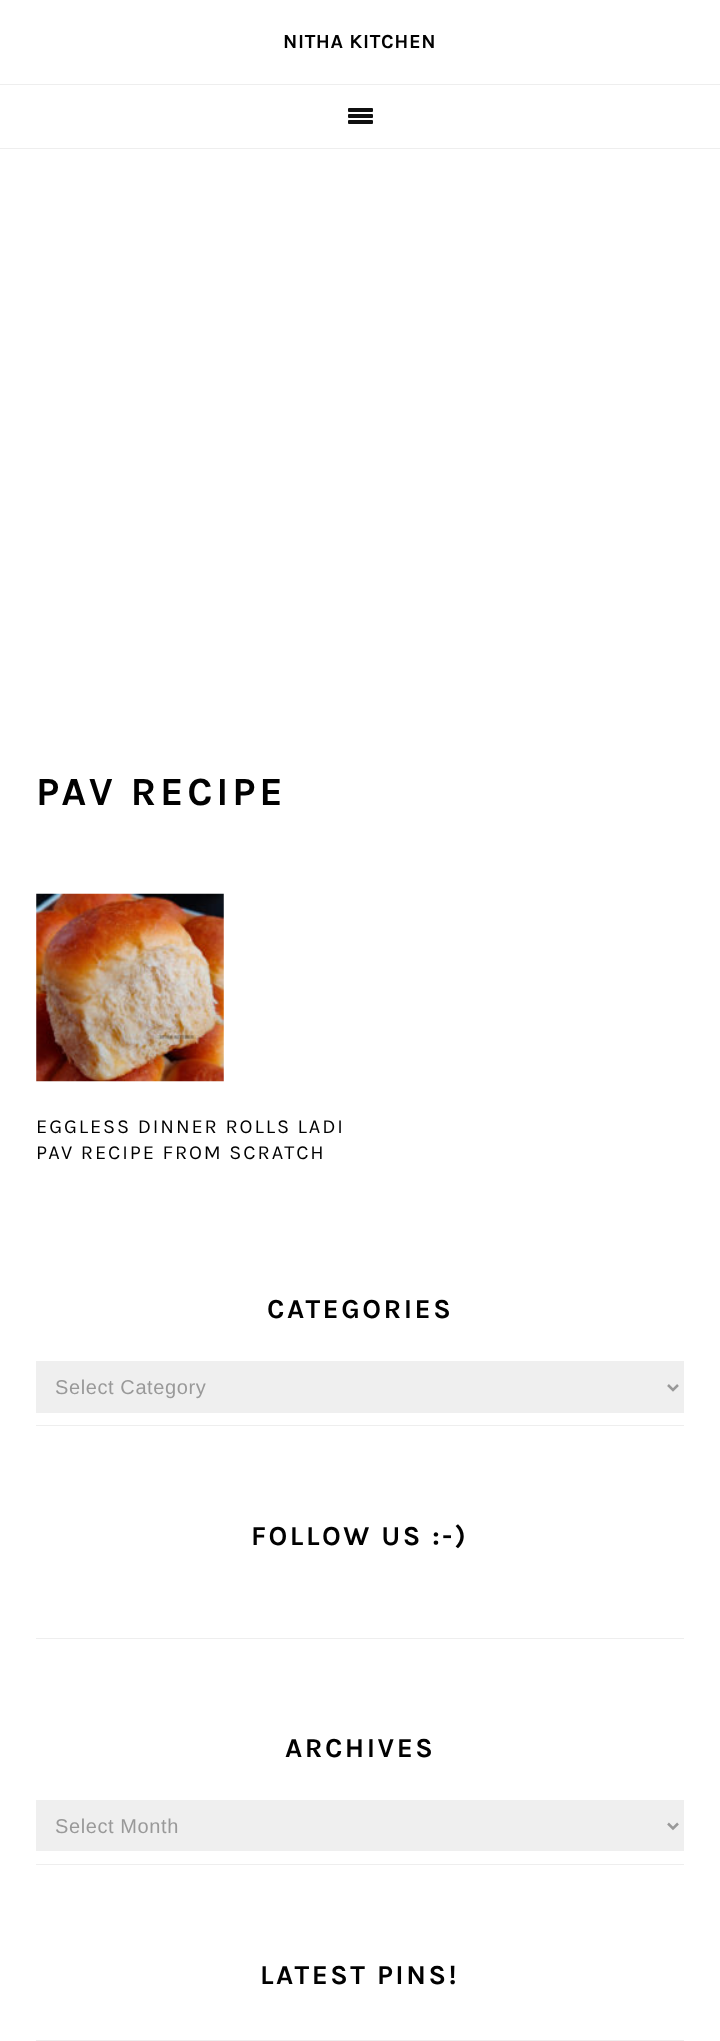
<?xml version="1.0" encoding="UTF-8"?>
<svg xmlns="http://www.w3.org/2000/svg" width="720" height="2041">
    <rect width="100%" height="100%" fill="#FFFFFF"/>
    <text x="283" y="48" font-family="Karla" font-size="20" font-weight="700" letter-spacing="0.6" fill="#010101">NITHA KITCHEN</text>
    <rect x="0" y="84" width="720" height="1" fill="#EEEEEE"/>
    <rect x="0" y="148" width="720" height="1" fill="#EEEEEE"/>
    <rect x="348" y="114" width="25" height="4" rx="1" fill="#101010"/>
    <rect x="348" y="108" width="25" height="4" rx="1" fill="#101010"/>
    <rect x="348" y="120" width="25" height="4" rx="1" fill="#101010"/>
    <text x="36" y="805" font-family="Karla" font-size="40" font-weight="700" letter-spacing="3.75" fill="#010101">PAV RECIPE</text>
    <image x="36" y="893" width="188" height="189" href="img_01.png"/>
    <text font-family="Karla" font-size="20" letter-spacing="1.9" fill="#010101">
        <tspan x="36" y="1133">EGGLESS DINNER ROLLS LADI</tspan>
        <tspan x="36" y="1159">PAV RECIPE FROM SCRATCH</tspan>
    </text>
    <rect x="36" y="1425" width="648" height="1" fill="#EEEEEE"/>
    <text x="267" y="1318" font-family="Karla" font-size="27.5" font-weight="700" letter-spacing="2.5" fill="#010101">CATEGORIES</text>
    <rect x="36" y="1361" width="648" height="52" fill="#EFEFEF"/>
    <path d="M 668 1385 L 673 1390 L 678 1385" fill="none" stroke="#999999" stroke-width="2.5"/>
    <text x="55" y="1394" font-family="Liberation Sans" font-size="20" letter-spacing="0.6" fill="#999999">Select Category</text>
    <rect x="36" y="1638" width="648" height="1" fill="#EEEEEE"/>
    <text x="251" y="1545" font-family="Karla" font-size="27.5" font-weight="700" letter-spacing="2.5" fill="#010101">FOLLOW US :-)</text>
    <rect x="36" y="1864" width="648" height="1" fill="#EEEEEE"/>
    <text x="285" y="1757" font-family="Karla" font-size="27.5" font-weight="700" letter-spacing="2.5" fill="#010101">ARCHIVES</text>
    <rect x="36" y="1800" width="648" height="51" fill="#EFEFEF"/>
    <path d="M 668 1823.5 L 673 1828.5 L 678 1823.5" fill="none" stroke="#999999" stroke-width="2.5"/>
    <text x="55" y="1833" font-family="Liberation Sans" font-size="20" letter-spacing="0.6" fill="#999999">Select Month</text>
    <rect x="36" y="2040" width="648" height="1" fill="#EEEEEE"/>
    <text x="260" y="1984" font-family="Karla" font-size="27.5" font-weight="700" letter-spacing="2.5" fill="#010101">LATEST PINS!</text>
</svg>
